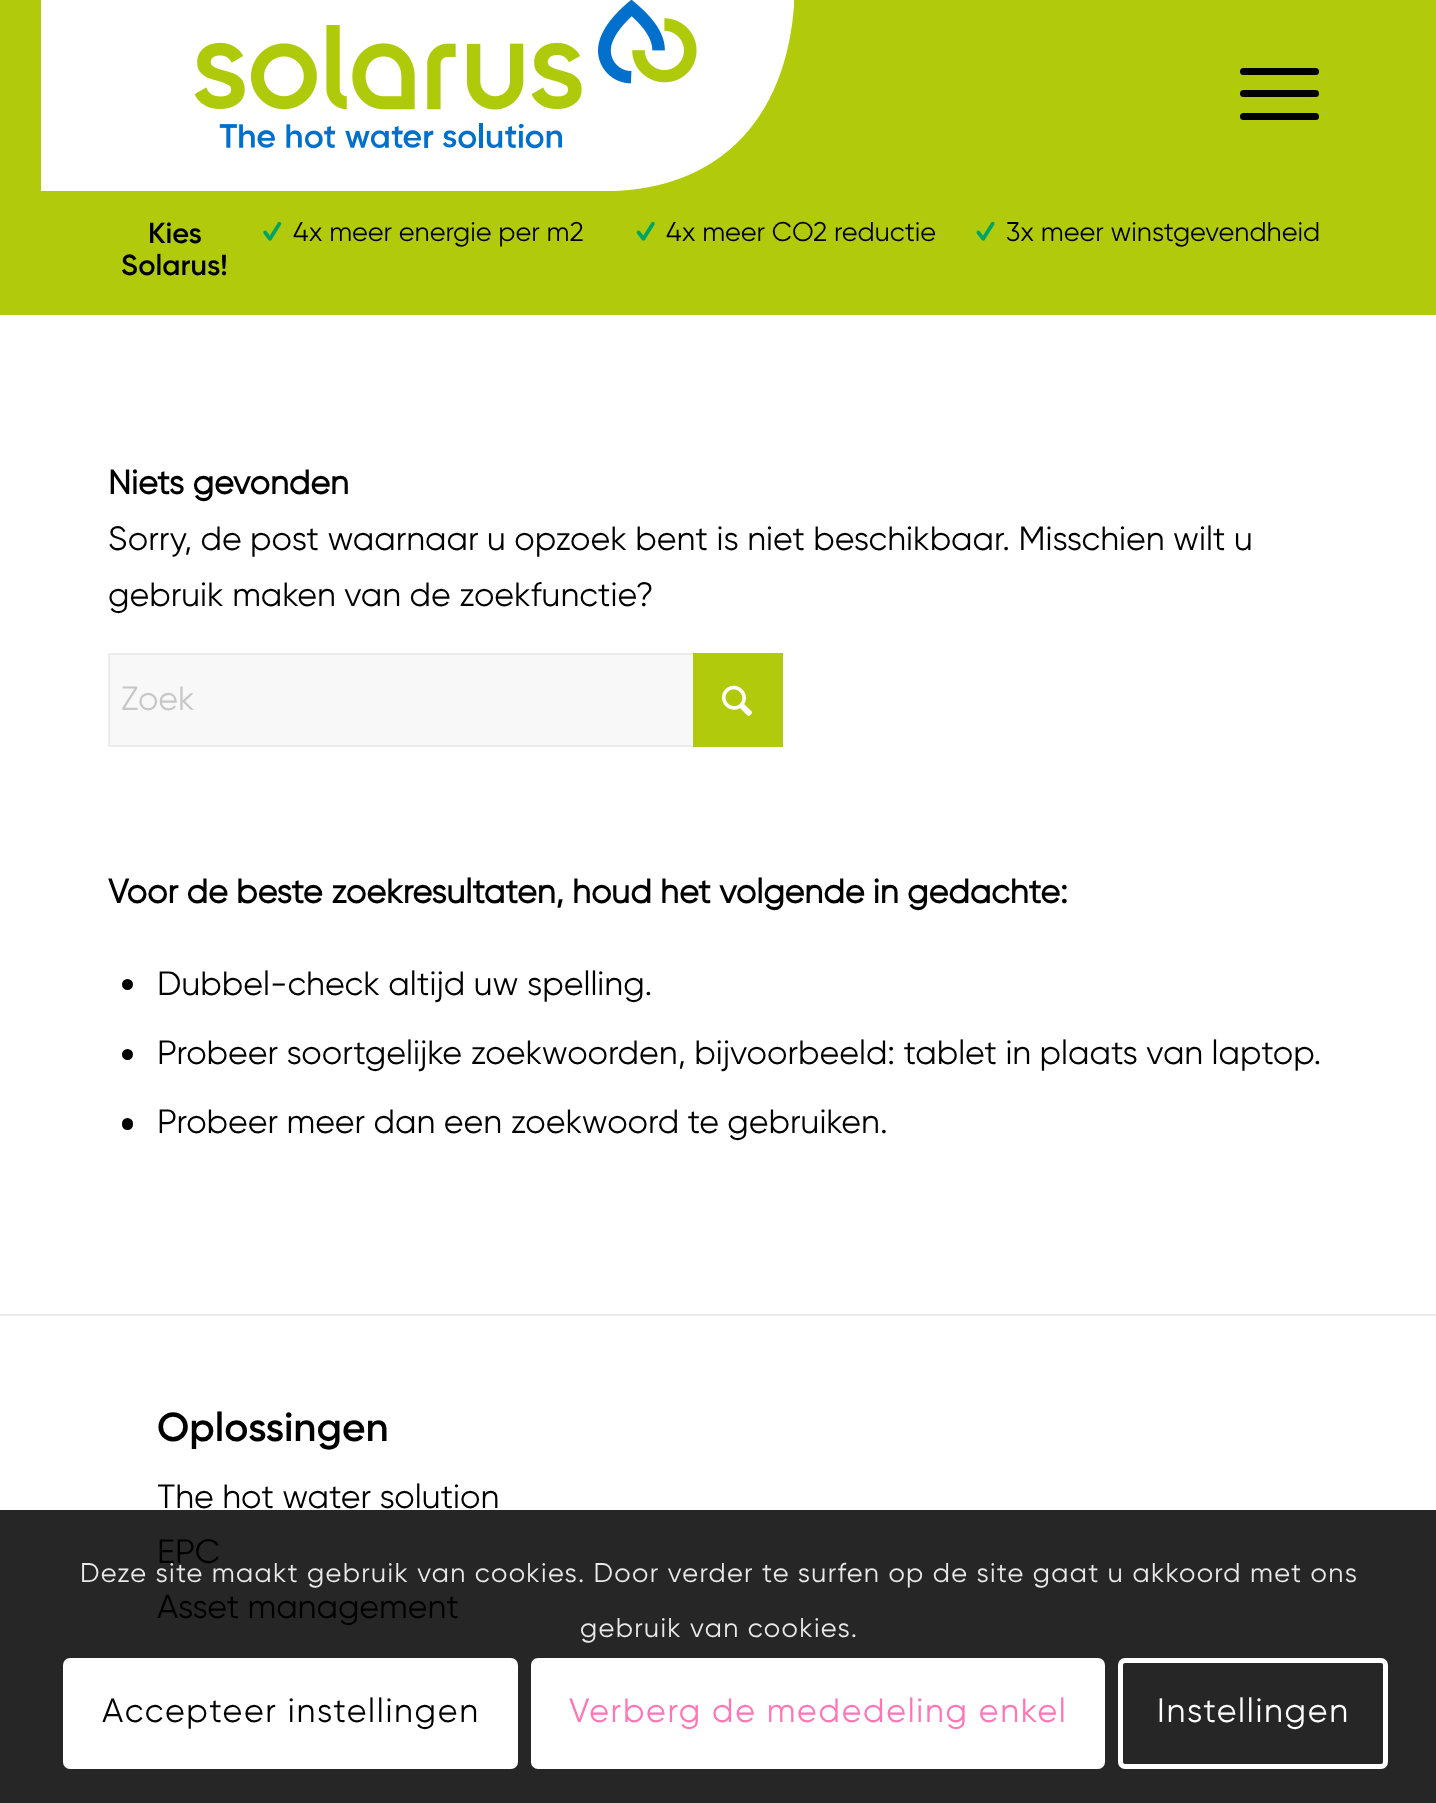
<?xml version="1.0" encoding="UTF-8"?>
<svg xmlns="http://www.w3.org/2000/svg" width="1436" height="1803">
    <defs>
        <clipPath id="clip1"><rect x="158" y="1373" width="1221" height="317"/></clipPath>
    </defs>
    <rect width="100%" height="100%" fill="#FFFFFF"/>
    <rect x="0" y="1510" width="1436" height="293" fill="#262626"/>
    <rect x="0" y="0" width="1436" height="315" fill="#B1CA0B"/>
    <image x="41" y="0" width="753" height="191" href="img_01.png"/>
    <rect x="1240" y="90" width="79" height="7" rx="3.5" fill="#000000"/>
    <rect x="1240" y="68" width="79" height="7" rx="3.5" fill="#000000"/>
    <rect x="1240" y="113" width="79" height="7" rx="3.5" fill="#000000"/>
    <text x="148" y="243" font-family="Gilroy" font-size="29" font-weight="600" fill="#000000">Kies</text>
    <text x="121" y="275" font-family="Gilroy" font-size="29" font-weight="600" fill="#000000">Solarus!</text>
    <image x="263" y="221" width="19" height="20" href="img_02.png"/>
    <text x="293" y="241" font-family="Gilroy" font-size="27" fill="#000000">4x meer energie per m2</text>
    <image x="636" y="221" width="19" height="20" href="img_03.png"/>
    <text x="666" y="241" font-family="Gilroy" font-size="27" fill="#000000">4x meer CO2 reductie</text>
    <image x="976" y="221" width="19" height="20" href="img_04.png"/>
    <text x="1006" y="241" font-family="Gilroy" font-size="27" fill="#000000">3x meer winstgevendheid</text>
    <text x="108" y="494" font-family="Gilroy" font-size="33.75" font-weight="700" fill="#000000">Niets gevonden</text>
    <text font-family="Gilroy" font-size="33.75" fill="#000000">
        <tspan x="108" y="550">Sorry, de post waarnaar u opzoek bent is niet beschikbaar. Misschien wilt u</tspan>
        <tspan x="108" y="606">gebruik maken van de zoekfunctie?</tspan>
    </text>
    <rect x="110" y="655" width="583" height="90" fill="#F8F8F8"/>
    <rect x="109" y="654" width="673" height="92" fill="none" stroke="#EBEBEB" stroke-width="2"/>
    <rect x="693" y="653" width="90" height="94" fill="#B1CA0B"/>
    <text x="121" y="710" font-family="Gilroy" font-size="33.75" fill="#C7C7C7">Zoek</text>
    <image x="721" y="685" width="32" height="31" href="img_05.png"/>
    <text x="108" y="903" font-family="Gilroy" font-size="33.75" font-weight="700" fill="#000000">Voor de beste zoekresultaten, houd het volgende in gedachte:</text>
    <circle cx="127.5" cy="984.5" r="5.5" fill="#000000"/>
    <text x="157" y="995" font-family="Gilroy" font-size="33.75" fill="#000000">Dubbel-check altijd uw spelling.</text>
    <circle cx="127.5" cy="1054.5" r="5.5" fill="#000000"/>
    <text x="157" y="1064" font-family="Gilroy" font-size="33.75" fill="#000000">Probeer soortgelijke zoekwoorden, bijvoorbeeld: tablet in plaats van laptop.</text>
    <rect x="122" y="1118" width="11" height="12" rx="5.5" fill="#000000"/>
    <text x="157" y="1133" font-family="Gilroy" font-size="33.75" fill="#000000">Probeer meer dan een zoekwoord te gebruiken.</text>
    <rect x="0" y="1314" width="1436" height="2" fill="#EBEBEB"/>
    <text x="157" y="1441" font-family="Gilroy" font-size="40.5" font-weight="600" fill="#000000">Oplossingen</text>
    <g clip-path="url(#clip1)">
        <text x="157" y="1508" font-family="Gilroy" font-size="33.75" fill="#000000">The hot water solution</text>
    </g>
    <text font-family="Gilroy" font-size="33.75" fill="#000000">
        <tspan x="157" y="1563">EPC</tspan>
        <tspan x="157" y="1618">Asset management</tspan>
    </text>
    <text x="80" y="1582" font-family="Gilroy" font-size="27" letter-spacing="1.35" fill="#E9E9E9">Deze site maakt gebruik van cookies. Door verder te surfen op de site gaat u akkoord met ons</text>
    <text x="580" y="1637" font-family="Gilroy" font-size="27" letter-spacing="1.35" fill="#E9E9E9">gebruik van cookies.</text>
    <rect x="63" y="1658" width="455" height="111" rx="7" fill="#FFFFFF"/>
    <text x="102" y="1722" font-family="Gilroy" font-size="33.75" letter-spacing="1.7" fill="#000000">Accepteer instellingen</text>
    <rect x="533.5" y="1660.5" width="569" height="106" rx="4.5" fill="#FFFFFF" stroke="#FFFFFF" stroke-width="5"/>
    <text x="569" y="1722" font-family="Gilroy" font-size="33.75" letter-spacing="1.7" fill="#FF75B5">Verberg de mededeling enkel</text>
    <rect x="1120.5" y="1660.5" width="265" height="106" rx="4.5" fill="none" stroke="#FFFFFF" stroke-width="5"/>
    <text x="1157" y="1722" font-family="Gilroy" font-size="33.75" letter-spacing="1.7" fill="#FFFFFF">Instellingen</text>
</svg>
